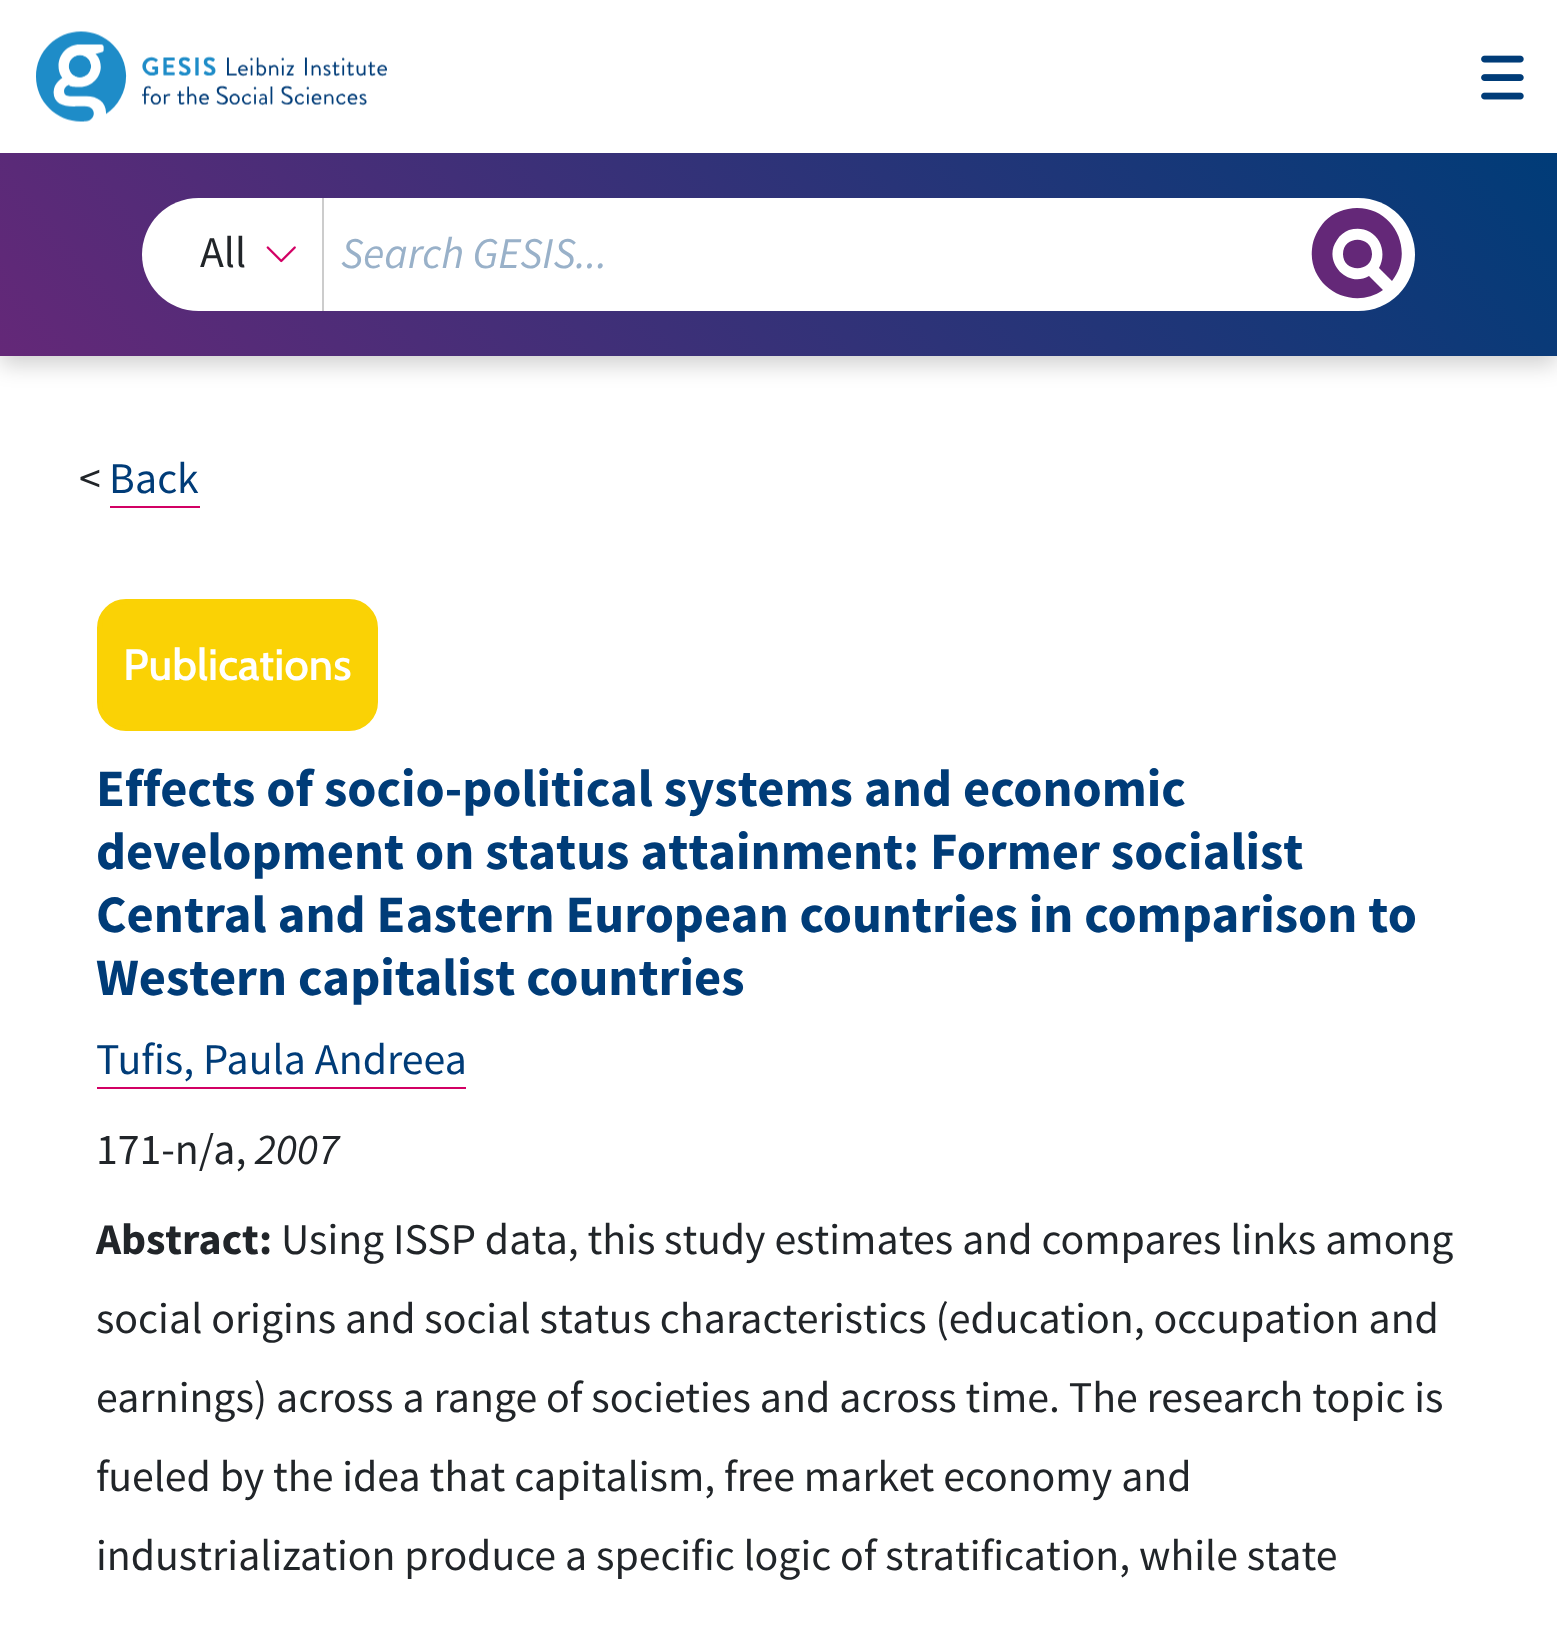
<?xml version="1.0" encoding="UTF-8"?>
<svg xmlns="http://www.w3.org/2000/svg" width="1557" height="1633">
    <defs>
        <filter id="blur1" x="-50%" y="-200%" width="200%" height="500%"><feGaussianBlur stdDeviation="11"/></filter>
        <linearGradient id="g1" gradientUnits="userSpaceOnUse" x1="272" y1="679" x2="1285" y2="-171"><stop offset="0" stop-color="#642878"/><stop offset="1" stop-color="#003C78"/></linearGradient>
    </defs>
    <rect width="100%" height="100%" fill="#FFFFFF"/>
    <rect x="0" y="9" width="1557" height="356" fill="#000000" fill-opacity="0.18" filter="url(#blur1)"/>
    <rect x="0" y="0" width="1557" height="153" fill="#FFFFFF"/>
    <image x="36" y="31" width="351" height="91" href="img_01.png"/>
    <image x="1481" y="55" width="43" height="45" href="img_02.png"/>
    <rect x="0" y="153" width="1557" height="203" fill="url(#g1)"/>
    <rect x="142" y="198" width="1273" height="113" rx="56.5" fill="#FFFFFF"/>
    <image x="266" y="246" width="30" height="17" href="img_03.png"/>
    <rect x="322" y="198" width="2" height="113" fill="#CCCCCC"/>
    <text x="200" y="267" font-family="Source Sans Pro" font-size="43.8" fill="#212529">All</text>
    <text x="341" y="268" font-family="Source Sans Pro" font-size="43.8" font-style="italic" fill="#99B1C9">Search GESIS...</text>
    <path d="M 1372 254 C 1372 273 1343 273 1343 254 C 1343 235 1372 235 1372 254 Z M 1357 208 C 1345 208 1333 213 1325 221 C 1318 229 1313 238 1312 249 C 1308 287 1352 312 1383 290 L 1369 276 C 1347 289 1322 261 1337 240 C 1340 235 1344 232 1349 230 C 1356 228 1363 228 1370 232 C 1382 239 1386 255 1379 268 L 1392 281 C 1415 252 1395 208 1357 208 Z M 1392 281 L 1379 268 Z" fill="#642878"/>
    <text x="79" y="493" font-family="Source Sans Pro" font-size="43.8" fill="#212529">&lt;</text>
    <text x="109" y="493" font-family="Source Sans Pro" font-size="43.8" fill="#003C78">Back</text>
    <rect x="110" y="506" width="90" height="2" fill="#D20064"/>
    <rect x="99.5" y="601.5" width="276" height="127" rx="26.5" fill="#FAD205" stroke="#FAD205" stroke-width="5"/>
    <text x="123" y="680" font-family="Cabin" font-size="43.8" font-weight="600" fill="#FFFFFF">Publications</text>
    <text font-family="Source Sans Pro" font-size="52.6" font-weight="700" fill="#003C78">
        <tspan x="96" y="806">Effects of socio-political systems and economic</tspan>
        <tspan x="96" y="869">development on status attainment: Former socialist</tspan>
        <tspan x="96" y="932">Central and Eastern European countries in comparison to</tspan>
        <tspan x="96" y="995">Western capitalist countries</tspan>
    </text>
    <text x="96" y="1074" font-family="Source Sans Pro" font-size="43.8" fill="#003C78">Tufis, Paula Andreea</text>
    <rect x="97" y="1087" width="369" height="2" fill="#D20064"/>
    <text x="96" y="1164" font-family="Source Sans Pro" font-size="43.8" fill="#212529">171-n/a,</text>
    <text x="255" y="1164" font-family="Source Sans Pro" font-size="43.8" font-style="italic" fill="#212529">2007</text>
    <text x="96" y="1254" font-family="Source Sans Pro" font-size="43.8" font-weight="700" fill="#212529">Abstract:</text>
    <text x="281" y="1254" font-family="Source Sans Pro" font-size="43.8" fill="#212529">Using ISSP data, this study estimates and compares links among</text>
    <text font-family="Source Sans Pro" font-size="43.8" fill="#212529">
        <tspan x="96" y="1333">social origins and social status characteristics (education, occupation and</tspan>
        <tspan x="96" y="1412">earnings) across a range of societies and across time. The research topic is</tspan>
        <tspan x="96" y="1491">fueled by the idea that capitalism, free market economy and</tspan>
        <tspan x="96" y="1570">industrialization produce a specific logic of stratification, while state</tspan>
    </text>
</svg>
